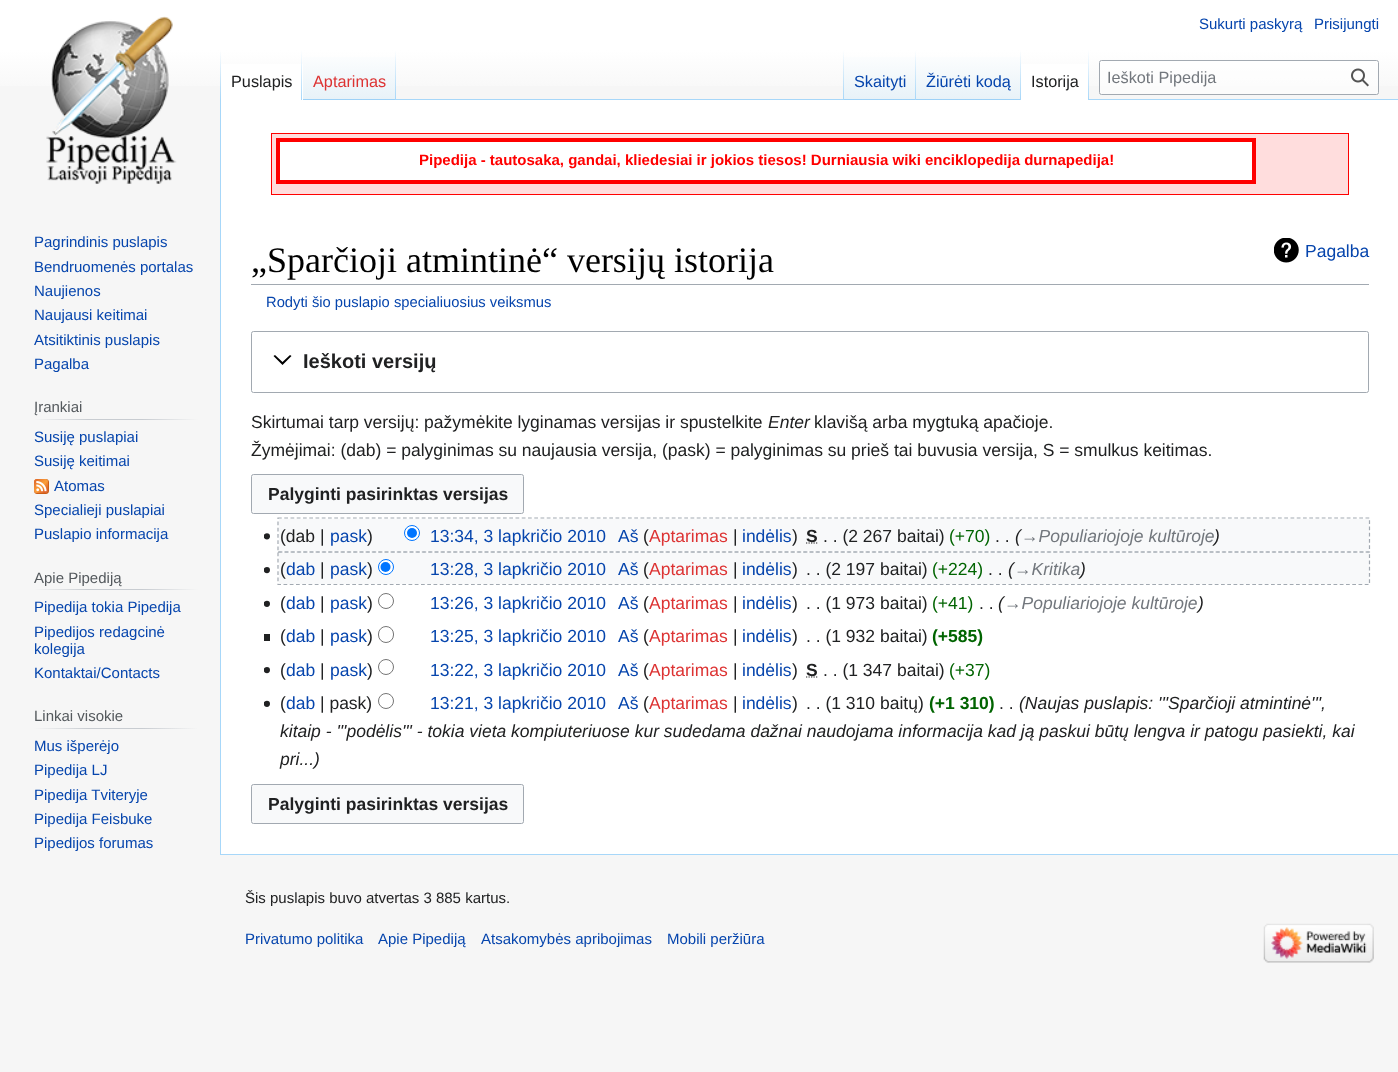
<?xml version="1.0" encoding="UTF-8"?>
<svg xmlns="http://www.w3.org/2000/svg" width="1398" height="1072">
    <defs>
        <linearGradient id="g1" gradientUnits="userSpaceOnUse" x1="699" y1="0" x2="699" y2="100"><stop offset="0.5" stop-color="#FFFFFF"/><stop offset="1" stop-color="#F6F6F6"/></linearGradient>
        <linearGradient id="g2" gradientUnits="userSpaceOnUse" x1="221" y1="50" x2="221" y2="100"><stop offset="0" stop-color="#A7D7F9" stop-opacity="0"/><stop offset="1" stop-color="#A7D7F9"/></linearGradient>
        <linearGradient id="g3" gradientUnits="userSpaceOnUse" x1="302" y1="50" x2="302" y2="100"><stop offset="0" stop-color="#FFFFFF"/><stop offset="1" stop-color="#A7D7F9"/></linearGradient>
        <linearGradient id="g4" gradientUnits="userSpaceOnUse" x1="349" y1="100" x2="349" y2="50"><stop offset="0" stop-color="#77C1F6"/><stop offset="0.03" stop-color="#E8F2F8"/><stop offset="1" stop-color="#FFFFFF"/></linearGradient>
        <linearGradient id="g5" gradientUnits="userSpaceOnUse" x1="396" y1="50" x2="396" y2="100"><stop offset="0" stop-color="#A7D7F9" stop-opacity="0"/><stop offset="1" stop-color="#A7D7F9"/></linearGradient>
        <linearGradient id="g6" gradientUnits="userSpaceOnUse" x1="843" y1="50" x2="843" y2="100"><stop offset="0" stop-color="#A7D7F9" stop-opacity="0"/><stop offset="1" stop-color="#A7D7F9"/></linearGradient>
        <linearGradient id="g7" gradientUnits="userSpaceOnUse" x1="880" y1="100" x2="880" y2="50"><stop offset="0" stop-color="#77C1F6"/><stop offset="0.03" stop-color="#E8F2F8"/><stop offset="1" stop-color="#FFFFFF"/></linearGradient>
        <linearGradient id="g8" gradientUnits="userSpaceOnUse" x1="916" y1="50" x2="916" y2="100"><stop offset="0" stop-color="#A7D7F9" stop-opacity="0"/><stop offset="1" stop-color="#A7D7F9"/></linearGradient>
        <linearGradient id="g9" gradientUnits="userSpaceOnUse" x1="969" y1="100" x2="969" y2="50"><stop offset="0" stop-color="#77C1F6"/><stop offset="0.03" stop-color="#E8F2F8"/><stop offset="1" stop-color="#FFFFFF"/></linearGradient>
        <linearGradient id="g10" gradientUnits="userSpaceOnUse" x1="1021" y1="50" x2="1021" y2="100"><stop offset="0" stop-color="#A7D7F9" stop-opacity="0"/><stop offset="1" stop-color="#A7D7F9"/></linearGradient>
        <linearGradient id="g11" gradientUnits="userSpaceOnUse" x1="1088" y1="50" x2="1088" y2="100"><stop offset="0" stop-color="#FFFFFF"/><stop offset="1" stop-color="#A7D7F9"/></linearGradient>
        <linearGradient id="g12" gradientUnits="userSpaceOnUse" x1="34" y1="419" x2="198" y2="419"><stop offset="0" stop-color="#F6F6F6"/><stop offset="0.33" stop-color="#C8CCD1"/><stop offset="0.66" stop-color="#C8CCD1"/><stop offset="1" stop-color="#F6F6F6"/></linearGradient>
        <linearGradient id="g13" gradientUnits="userSpaceOnUse" x1="34" y1="589" x2="198" y2="589"><stop offset="0" stop-color="#F6F6F6"/><stop offset="0.33" stop-color="#C8CCD1"/><stop offset="0.66" stop-color="#C8CCD1"/><stop offset="1" stop-color="#F6F6F6"/></linearGradient>
        <linearGradient id="g14" gradientUnits="userSpaceOnUse" x1="34" y1="728" x2="198" y2="728"><stop offset="0" stop-color="#F6F6F6"/><stop offset="0.33" stop-color="#C8CCD1"/><stop offset="0.66" stop-color="#C8CCD1"/><stop offset="1" stop-color="#F6F6F6"/></linearGradient>
    </defs>
    <rect width="100%" height="100%" fill="#F6F6F6"/>
    <rect x="0" y="0" width="1398" height="86" fill="url(#g1)"/>
    <text x="1199" y="29" font-family="Liberation Sans" font-size="15" fill="#0645AD">Sukurti paskyrą</text>
    <text x="1314" y="29" font-family="Liberation Sans" font-size="15" fill="#0645AD">Prisijungti</text>
    <rect x="220" y="854" width="1178" height="1" fill="#A7D7F9"/>
    <rect x="220" y="99" width="1" height="756" fill="#A7D7F9"/>
    <rect x="220" y="50" width="1" height="50" fill="url(#g2)"/>
    <rect x="221" y="64" width="82" height="36" fill="#FFFFFF"/>
    <rect x="301" y="50" width="1" height="50" fill="url(#g3)"/>
    <text x="231" y="87" font-family="Liberation Sans" font-size="16.25" fill="#202122">Puslapis</text>
    <rect x="303" y="57" width="93" height="43" fill="url(#g4)"/>
    <rect x="395" y="50" width="1" height="50" fill="url(#g5)"/>
    <text x="313" y="87" font-family="Liberation Sans" font-size="16.25" fill="#DD3333">Aptarimas</text>
    <rect x="396" y="99" width="1002" height="1" fill="#A7D7F9"/>
    <rect x="843" y="50" width="1" height="50" fill="url(#g6)"/>
    <rect x="844" y="57" width="72" height="43" fill="url(#g7)"/>
    <rect x="915" y="50" width="1" height="50" fill="url(#g8)"/>
    <text x="854" y="87" font-family="Liberation Sans" font-size="16.25" fill="#0645AD">Skaityti</text>
    <rect x="916" y="57" width="105" height="43" fill="url(#g9)"/>
    <rect x="1020" y="50" width="1" height="50" fill="url(#g10)"/>
    <text x="926" y="87" font-family="Liberation Sans" font-size="16.25" fill="#0645AD">Žiūrėti kodą</text>
    <rect x="1021" y="64" width="67" height="36" fill="#FFFFFF"/>
    <rect x="1088" y="50" width="1" height="50" fill="url(#g11)"/>
    <text x="1031" y="87" font-family="Liberation Sans" font-size="16.25" fill="#202122">Istorija</text>
    <rect x="1099.5" y="60.5" width="279" height="34" rx="2" fill="#FFFFFF" fill-opacity="0.5" stroke="#A2A9B1"/>
    <text x="1107" y="83" font-family="Liberation Sans" font-size="16.25" fill="#72777D">Ieškoti Pipedija</text>
    <image x="1351" y="68" width="18" height="19" href="img_01.png"/>
    <image x="46" y="16" width="131" height="168" href="img_02.png"/>
    <text font-family="Liberation Sans" font-size="15" fill="#0645AD">
        <tspan x="34" y="247">Pagrindinis puslapis</tspan>
        <tspan x="34" y="272">Bendruomenės portalas</tspan>
        <tspan x="34" y="296">Naujienos</tspan>
        <tspan x="34" y="320">Naujausi keitimai</tspan>
        <tspan x="34" y="345">Atsitiktinis puslapis</tspan>
        <tspan x="34" y="369">Pagalba</tspan>
    </text>
    <rect x="34" y="419" width="164" height="1" fill="url(#g12)"/>
    <text x="34" y="412" font-family="Liberation Sans" font-size="15" fill="#54595D">Įrankiai</text>
    <text font-family="Liberation Sans" font-size="15" fill="#0645AD">
        <tspan x="34" y="442">Susiję puslapiai</tspan>
        <tspan x="34" y="466">Susiję keitimai</tspan>
    </text>
    <image x="34" y="479" width="15" height="15" href="img_03.png"/>
    <text x="54" y="491" font-family="Liberation Sans" font-size="15" fill="#0645AD">Atomas</text>
    <text font-family="Liberation Sans" font-size="15" fill="#0645AD">
        <tspan x="34" y="515">Specialieji puslapiai</tspan>
        <tspan x="34" y="539">Puslapio informacija</tspan>
    </text>
    <rect x="34" y="589" width="164" height="1" fill="url(#g13)"/>
    <text x="34" y="583" font-family="Liberation Sans" font-size="15" fill="#54595D">Apie Pipediją</text>
    <text font-family="Liberation Sans" font-size="15" fill="#0645AD">
        <tspan x="34" y="612">Pipedija tokia Pipedija</tspan>
        <tspan x="34" y="637">Pipedijos redagcinė</tspan>
        <tspan x="34" y="654">kolegija</tspan>
        <tspan x="34" y="678">Kontaktai/Contacts</tspan>
    </text>
    <rect x="34" y="728" width="164" height="1" fill="url(#g14)"/>
    <text x="34" y="721" font-family="Liberation Sans" font-size="15" fill="#54595D">Linkai visokie</text>
    <text font-family="Liberation Sans" font-size="15" fill="#0645AD">
        <tspan x="34" y="751">Mus išperėjo</tspan>
        <tspan x="34" y="775">Pipedija LJ</tspan>
        <tspan x="34" y="800">Pipedija Tviteryje</tspan>
        <tspan x="34" y="824">Pipedija Feisbuke</tspan>
        <tspan x="34" y="848">Pipedijos forumas</tspan>
    </text>
    <rect x="221" y="100" width="1177" height="754" fill="#FFFFFF"/>
    <rect x="271.5" y="133.5" width="1077" height="61" fill="#FFDDDD" stroke="#FF0000"/>
    <rect x="278" y="140" width="976" height="42" fill="#FFFFFF" stroke="#FF0000" stroke-width="4"/>
    <text x="419" y="165" font-family="Liberation Sans" font-size="15" font-weight="700" fill="#FF0000">Pipedija - tautosaka, gandai, kliedesiai ir jokios tiesos! Durniausia wiki enciklopedija durnapedija!</text>
    <rect x="251" y="284" width="1118" height="1" fill="#A2A9B1"/>
    <text x="251" y="272" font-family="Liberation Serif" font-size="36" fill="#000000">„Sparčioji atmintinė“ versijų istorija</text>
    <image x="1274" y="238" width="25" height="25" href="img_04.png"/>
    <text x="1305" y="257" font-family="Liberation Sans" font-size="17.5" fill="#0645AD">Pagalba</text>
    <text x="266" y="307" font-family="Liberation Sans" font-size="14.75" fill="#0645AD">Rodyti šio puslapio specialiuosius veiksmus</text>
    <rect x="251.5" y="331.5" width="1117" height="61" rx="2" fill="none" stroke="#A2A9B1"/>
    <path d="M 290 355 L 282.5 362 L 275 355 L 273.5 356 L 282.5 365 L 291.5 356 Z" fill="#000000"/>
    <text x="303" y="368" font-family="Liberation Sans" font-size="20" font-weight="700" fill="#202122">Ieškoti versijų</text>
    <text x="251" y="428" font-family="Liberation Sans" font-size="17.5" fill="#202122">Skirtumai tarp versijų: pažymėkite lyginamas versijas ir spustelkite</text>
    <text x="768" y="428" font-family="Liberation Sans" font-size="17.5" font-style="italic" fill="#202122">Enter</text>
    <text x="814" y="428" font-family="Liberation Sans" font-size="17.5" fill="#202122">klavišą arba mygtuką apačioje.</text>
    <text x="251" y="456" font-family="Liberation Sans" font-size="17.5" fill="#202122">Žymėjimai: (dab) = palyginimas su naujausia versija, (pask) = palyginimas su prieš tai buvusia versija, S = smulkus keitimas.</text>
    <rect x="251.5" y="474.5" width="272" height="39" rx="2" fill="#F8F9FA" stroke="#A2A9B1"/>
    <text x="268" y="500" font-family="Liberation Sans" font-size="17.5" font-weight="700" fill="#202122">Palyginti pasirinktas versijas</text>
    <rect x="279" y="519" width="1090" height="32" fill="#F8F9FA"/>
    <image x="264" y="533" width="6" height="7" href="img_05.png"/>
    <text x="280" y="542" font-family="Liberation Sans" font-size="17.5" fill="#202122">(dab |</text>
    <text x="330" y="542" font-family="Liberation Sans" font-size="17.5" fill="#0645AD">pask</text>
    <text x="367" y="542" font-family="Liberation Sans" font-size="17.5" fill="#202122">)</text>
    <circle cx="412" cy="533" r="7.5" fill="#FFFFFF" stroke="#0075FF"/>
    <circle cx="412" cy="533" r="5" fill="#0075FF"/>
    <text x="430" y="542" font-family="Liberation Sans" font-size="17.5" fill="#0645AD">13:34, 3 lapkričio 2010</text>
    <text x="618" y="542" font-family="Liberation Sans" font-size="17.5" fill="#0645AD">Aš</text>
    <text x="643" y="542" font-family="Liberation Sans" font-size="17.5" fill="#202122">(</text>
    <text x="649" y="542" font-family="Liberation Sans" font-size="17.5" fill="#DD3333">Aptarimas</text>
    <text x="733" y="542" font-family="Liberation Sans" font-size="17.5" fill="#202122">|</text>
    <text x="742" y="542" font-family="Liberation Sans" font-size="17.5" fill="#0645AD">indėlis</text>
    <text x="792" y="542" font-family="Liberation Sans" font-size="17.5" fill="#202122">)</text>
    <path d="M 806 543 H 817.5" fill="none" stroke="#202122" stroke-width="1.2" stroke-dasharray="1.25 1.25"/>
    <text x="806" y="542" font-family="Liberation Sans" font-size="17.5" font-weight="700" fill="#202122">S</text>
    <text x="823" y="542" font-family="Liberation Sans" font-size="17.5" fill="#202122">. . (2 267 baitai)</text>
    <text x="949" y="542" font-family="Liberation Sans" font-size="17.5" fill="#006400">(+70)</text>
    <text x="995" y="542" font-family="Liberation Sans" font-size="17.5" fill="#202122">. .</text>
    <text x="1015" y="542" font-family="Liberation Sans" font-size="17.5" font-style="italic" fill="#202122">(</text>
    <text x="1021" y="542" font-family="Liberation Sans" font-size="17.5" font-style="italic" fill="#72777D">→Populiariojoje kultūroje</text>
    <text x="1214" y="542" font-family="Liberation Sans" font-size="17.5" font-style="italic" fill="#202122">)</text>
    <path d="M 278 518 H 1369.5 V 552 H 278 Z" fill="none" stroke="#A2A9B1" stroke-width="1.2" stroke-dasharray="3.75 2.5"/>
    <rect x="279" y="553" width="1090" height="31" fill="#F8F9FA"/>
    <image x="264" y="567" width="6" height="7" href="img_06.png"/>
    <text x="280" y="575" font-family="Liberation Sans" font-size="17.5" fill="#202122">(</text>
    <text x="286" y="575" font-family="Liberation Sans" font-size="17.5" fill="#0645AD">dab</text>
    <text x="320" y="575" font-family="Liberation Sans" font-size="17.5" fill="#202122">|</text>
    <text x="330" y="575" font-family="Liberation Sans" font-size="17.5" fill="#0645AD">pask</text>
    <text x="367" y="575" font-family="Liberation Sans" font-size="17.5" fill="#202122">)</text>
    <circle cx="386" cy="567" r="7.5" fill="#FFFFFF" stroke="#0075FF"/>
    <circle cx="385.5" cy="567" r="5" fill="#0075FF"/>
    <text x="430" y="575" font-family="Liberation Sans" font-size="17.5" fill="#0645AD">13:28, 3 lapkričio 2010</text>
    <text x="618" y="575" font-family="Liberation Sans" font-size="17.5" fill="#0645AD">Aš</text>
    <text x="643" y="575" font-family="Liberation Sans" font-size="17.5" fill="#202122">(</text>
    <text x="649" y="575" font-family="Liberation Sans" font-size="17.5" fill="#DD3333">Aptarimas</text>
    <text x="733" y="575" font-family="Liberation Sans" font-size="17.5" fill="#202122">|</text>
    <text x="742" y="575" font-family="Liberation Sans" font-size="17.5" fill="#0645AD">indėlis</text>
    <text x="792" y="575" font-family="Liberation Sans" font-size="17.5" fill="#202122">)</text>
    <text x="806" y="575" font-family="Liberation Sans" font-size="17.5" fill="#202122">. . (2 197 baitai)</text>
    <text x="932" y="575" font-family="Liberation Sans" font-size="17.5" fill="#006400">(+224)</text>
    <text x="988" y="575" font-family="Liberation Sans" font-size="17.5" fill="#202122">. .</text>
    <text x="1008" y="575" font-family="Liberation Sans" font-size="17.5" font-style="italic" fill="#202122">(</text>
    <text x="1014" y="575" font-family="Liberation Sans" font-size="17.5" font-style="italic" fill="#72777D">→Kritika</text>
    <text x="1080" y="575" font-family="Liberation Sans" font-size="17.5" font-style="italic" fill="#202122">)</text>
    <path d="M 278 552 H 1369.5 V 584.5 H 278 Z" fill="none" stroke="#A2A9B1" stroke-width="1.2" stroke-dasharray="3.75 2.5"/>
    <image x="264" y="600" width="6" height="7" href="img_07.png"/>
    <text x="280" y="609" font-family="Liberation Sans" font-size="17.5" fill="#202122">(</text>
    <text x="286" y="609" font-family="Liberation Sans" font-size="17.5" fill="#0645AD">dab</text>
    <text x="320" y="609" font-family="Liberation Sans" font-size="17.5" fill="#202122">|</text>
    <text x="330" y="609" font-family="Liberation Sans" font-size="17.5" fill="#0645AD">pask</text>
    <text x="367" y="609" font-family="Liberation Sans" font-size="17.5" fill="#202122">)</text>
    <circle cx="386" cy="601" r="7.5" fill="none" stroke="#767676"/>
    <text x="430" y="609" font-family="Liberation Sans" font-size="17.5" fill="#0645AD">13:26, 3 lapkričio 2010</text>
    <text x="618" y="609" font-family="Liberation Sans" font-size="17.5" fill="#0645AD">Aš</text>
    <text x="643" y="609" font-family="Liberation Sans" font-size="17.5" fill="#202122">(</text>
    <text x="649" y="609" font-family="Liberation Sans" font-size="17.5" fill="#DD3333">Aptarimas</text>
    <text x="733" y="609" font-family="Liberation Sans" font-size="17.5" fill="#202122">|</text>
    <text x="742" y="609" font-family="Liberation Sans" font-size="17.5" fill="#0645AD">indėlis</text>
    <text x="792" y="609" font-family="Liberation Sans" font-size="17.5" fill="#202122">)</text>
    <text x="806" y="609" font-family="Liberation Sans" font-size="17.5" fill="#202122">. . (1 973 baitai)</text>
    <text x="932" y="609" font-family="Liberation Sans" font-size="17.5" fill="#006400">(+41)</text>
    <text x="979" y="609" font-family="Liberation Sans" font-size="17.5" fill="#202122">. .</text>
    <text x="998" y="609" font-family="Liberation Sans" font-size="17.5" font-style="italic" fill="#202122">(</text>
    <text x="1004" y="609" font-family="Liberation Sans" font-size="17.5" font-style="italic" fill="#72777D">→Populiariojoje kultūroje</text>
    <text x="1198" y="609" font-family="Liberation Sans" font-size="17.5" font-style="italic" fill="#202122">)</text>
    <rect x="264" y="634" width="6" height="7" fill="#202122"/>
    <text x="280" y="642" font-family="Liberation Sans" font-size="17.5" fill="#202122">(</text>
    <text x="286" y="642" font-family="Liberation Sans" font-size="17.5" fill="#0645AD">dab</text>
    <text x="320" y="642" font-family="Liberation Sans" font-size="17.5" fill="#202122">|</text>
    <text x="330" y="642" font-family="Liberation Sans" font-size="17.5" fill="#0645AD">pask</text>
    <text x="367" y="642" font-family="Liberation Sans" font-size="17.5" fill="#202122">)</text>
    <rect x="378.5" y="626.5" width="15" height="16" rx="7.5" fill="none" stroke="#767676"/>
    <text x="430" y="642" font-family="Liberation Sans" font-size="17.5" fill="#0645AD">13:25, 3 lapkričio 2010</text>
    <text x="618" y="642" font-family="Liberation Sans" font-size="17.5" fill="#0645AD">Aš</text>
    <text x="643" y="642" font-family="Liberation Sans" font-size="17.5" fill="#202122">(</text>
    <text x="649" y="642" font-family="Liberation Sans" font-size="17.5" fill="#DD3333">Aptarimas</text>
    <text x="733" y="642" font-family="Liberation Sans" font-size="17.5" fill="#202122">|</text>
    <text x="742" y="642" font-family="Liberation Sans" font-size="17.5" fill="#0645AD">indėlis</text>
    <text x="792" y="642" font-family="Liberation Sans" font-size="17.5" fill="#202122">)</text>
    <text x="806" y="642" font-family="Liberation Sans" font-size="17.5" fill="#202122">. . (1 932 baitai)</text>
    <text x="932" y="642" font-family="Liberation Sans" font-size="17.5" font-weight="700" fill="#006400">(+585)</text>
    <image x="264" y="667" width="6" height="7" href="img_06.png"/>
    <text x="280" y="676" font-family="Liberation Sans" font-size="17.5" fill="#202122">(</text>
    <text x="286" y="676" font-family="Liberation Sans" font-size="17.5" fill="#0645AD">dab</text>
    <text x="320" y="676" font-family="Liberation Sans" font-size="17.5" fill="#202122">|</text>
    <text x="330" y="676" font-family="Liberation Sans" font-size="17.5" fill="#0645AD">pask</text>
    <text x="367" y="676" font-family="Liberation Sans" font-size="17.5" fill="#202122">)</text>
    <circle cx="386" cy="667" r="7.5" fill="none" stroke="#767676"/>
    <text x="430" y="676" font-family="Liberation Sans" font-size="17.5" fill="#0645AD">13:22, 3 lapkričio 2010</text>
    <text x="618" y="676" font-family="Liberation Sans" font-size="17.5" fill="#0645AD">Aš</text>
    <text x="643" y="676" font-family="Liberation Sans" font-size="17.5" fill="#202122">(</text>
    <text x="649" y="676" font-family="Liberation Sans" font-size="17.5" fill="#DD3333">Aptarimas</text>
    <text x="733" y="676" font-family="Liberation Sans" font-size="17.5" fill="#202122">|</text>
    <text x="742" y="676" font-family="Liberation Sans" font-size="17.5" fill="#0645AD">indėlis</text>
    <text x="792" y="676" font-family="Liberation Sans" font-size="17.5" fill="#202122">)</text>
    <path d="M 806 677 H 817.5" fill="none" stroke="#202122" stroke-width="1.2" stroke-dasharray="1.25 1.25"/>
    <text x="806" y="676" font-family="Liberation Sans" font-size="17.5" font-weight="700" fill="#202122">S</text>
    <text x="823" y="676" font-family="Liberation Sans" font-size="17.5" fill="#202122">. . (1 347 baitai)</text>
    <text x="949" y="676" font-family="Liberation Sans" font-size="17.5" fill="#006400">(+37)</text>
    <image x="264" y="700" width="6" height="7" href="img_07.png"/>
    <text x="280" y="709" font-family="Liberation Sans" font-size="17.5" fill="#202122">(</text>
    <text x="286" y="709" font-family="Liberation Sans" font-size="17.5" fill="#0645AD">dab</text>
    <text x="320" y="709" font-family="Liberation Sans" font-size="17.5" fill="#202122">| pask)</text>
    <circle cx="386" cy="701" r="7.5" fill="none" stroke="#767676"/>
    <text x="430" y="709" font-family="Liberation Sans" font-size="17.5" fill="#0645AD">13:21, 3 lapkričio 2010</text>
    <text x="618" y="709" font-family="Liberation Sans" font-size="17.5" fill="#0645AD">Aš</text>
    <text x="643" y="709" font-family="Liberation Sans" font-size="17.5" fill="#202122">(</text>
    <text x="649" y="709" font-family="Liberation Sans" font-size="17.5" fill="#DD3333">Aptarimas</text>
    <text x="733" y="709" font-family="Liberation Sans" font-size="17.5" fill="#202122">|</text>
    <text x="742" y="709" font-family="Liberation Sans" font-size="17.5" fill="#0645AD">indėlis</text>
    <text x="792" y="709" font-family="Liberation Sans" font-size="17.5" fill="#202122">)</text>
    <text x="806" y="709" font-family="Liberation Sans" font-size="17.5" fill="#202122">. . (1 310 baitų)</text>
    <text x="929" y="709" font-family="Liberation Sans" font-size="17.5" font-weight="700" fill="#006400">(+1 310)</text>
    <text x="999" y="709" font-family="Liberation Sans" font-size="17.5" fill="#202122">. .</text>
    <text x="1019" y="709" font-family="Liberation Sans" font-size="17.5" font-style="italic" fill="#202122">(Naujas puslapis: '''Sparčioji atmintinė''',</text>
    <text font-family="Liberation Sans" font-size="17.5" font-style="italic" fill="#202122">
        <tspan x="280" y="737">kitaip - '''podėlis''' - tokia vieta kompiuteriuose kur sudedama dažnai naudojama informacija kad ją paskui būtų lengva ir patogu pasiekti, kai</tspan>
        <tspan x="280" y="765">pri...)</tspan>
    </text>
    <rect x="251.5" y="784.5" width="272" height="39" rx="2" fill="#F8F9FA" stroke="#A2A9B1"/>
    <text x="268" y="810" font-family="Liberation Sans" font-size="17.5" font-weight="700" fill="#202122">Palyginti pasirinktas versijas</text>
    <text x="245" y="903" font-family="Liberation Sans" font-size="15" fill="#202122">Šis puslapis buvo atvertas 3 885 kartus.</text>
    <text x="245" y="944" font-family="Liberation Sans" font-size="15" fill="#0645AD">Privatumo politika</text>
    <text x="378" y="944" font-family="Liberation Sans" font-size="15" fill="#0645AD">Apie Pipediją</text>
    <text x="481" y="944" font-family="Liberation Sans" font-size="15" fill="#0645AD">Atsakomybės apribojimas</text>
    <text x="667" y="944" font-family="Liberation Sans" font-size="15" fill="#0645AD">Mobili peržiūra</text>
    <image x="1263" y="923" width="111" height="40" href="img_08.png"/>
</svg>
